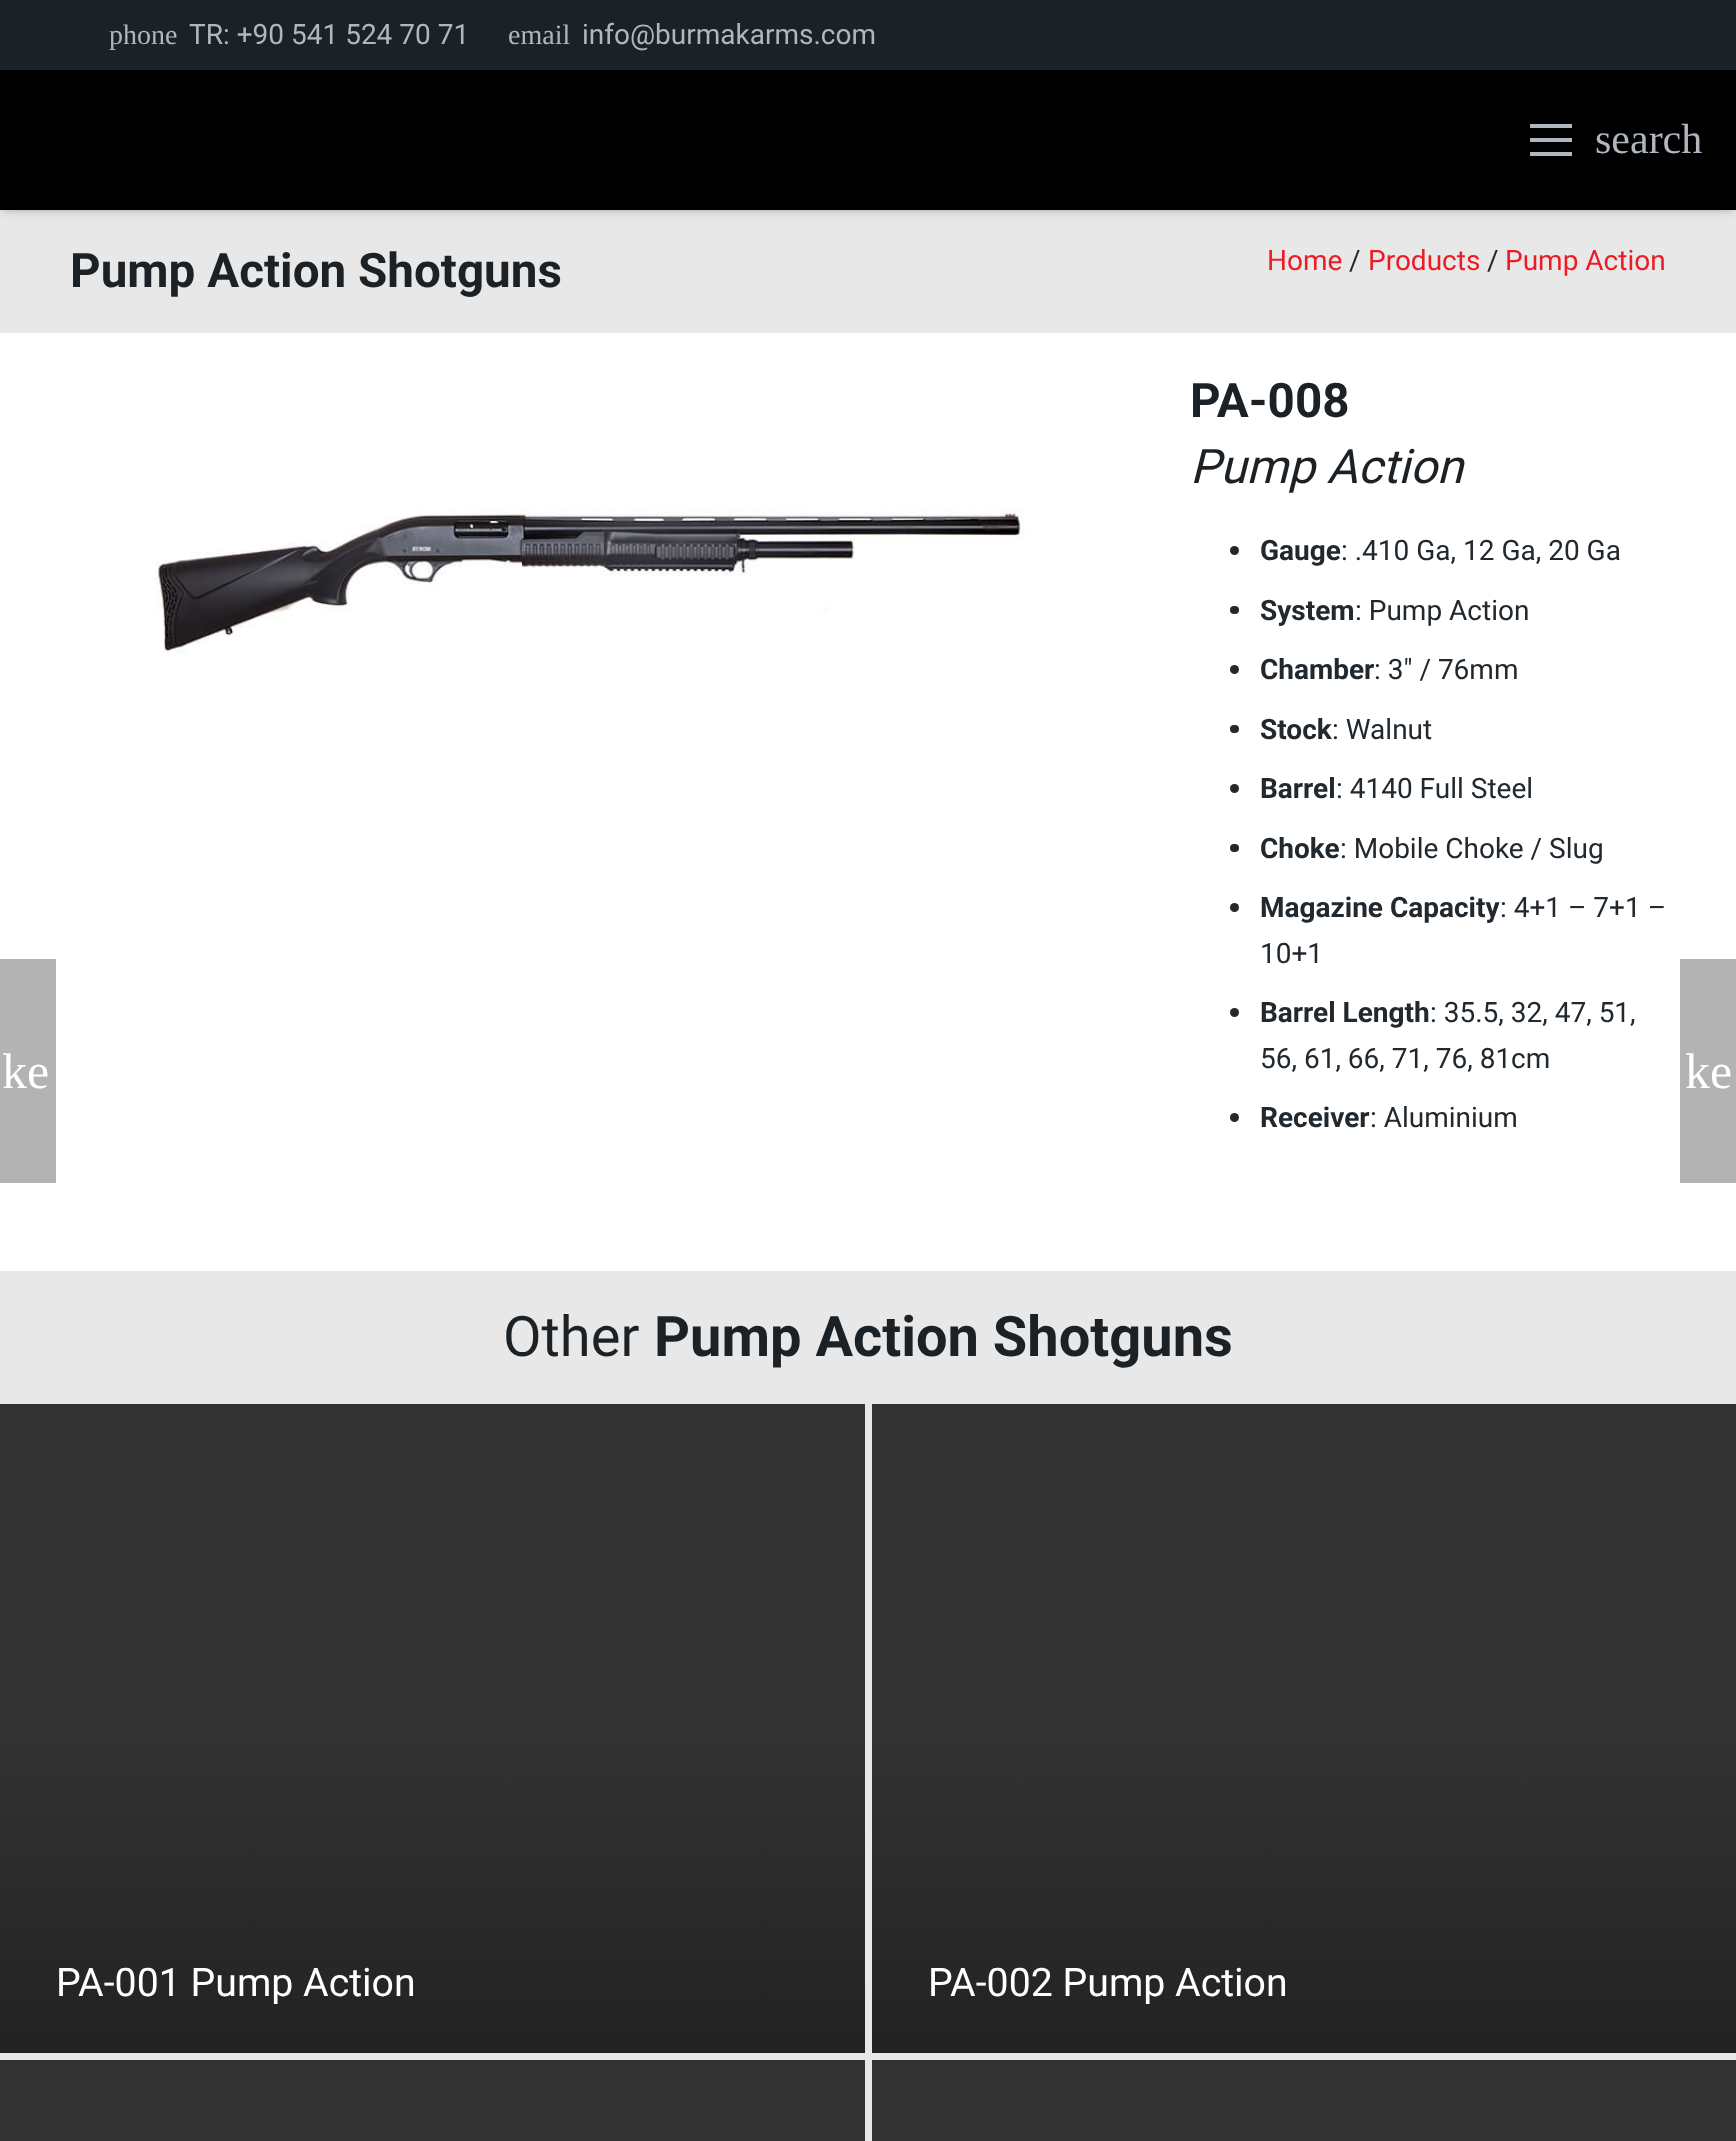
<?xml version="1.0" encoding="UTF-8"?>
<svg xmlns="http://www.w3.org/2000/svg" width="1736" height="2141">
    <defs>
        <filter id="blur1" x="-50%" y="-200%" width="200%" height="500%"><feGaussianBlur stdDeviation="1"/></filter>
        <filter id="blur2" x="-50%" y="-200%" width="200%" height="500%"><feGaussianBlur stdDeviation="4.5"/></filter>
        <linearGradient id="g1" gradientUnits="userSpaceOnUse" x1="432" y1="1729" x2="432" y2="2055"><stop offset="0" stop-color="#333333"/><stop offset="1" stop-color="#222222"/></linearGradient>
        <linearGradient id="g2" gradientUnits="userSpaceOnUse" x1="1304" y1="1729" x2="1304" y2="2055"><stop offset="0" stop-color="#333333"/><stop offset="1" stop-color="#222222"/></linearGradient>
    </defs>
    <rect width="100%" height="100%" fill="#FFFFFF"/>
    <rect x="0" y="0" width="1736" height="70" fill="#1C2126"/>
    <text x="109" y="44" font-family="Liberation Serif" font-size="28" fill="#B0B6BE">phone</text>
    <text x="189" y="44" font-family="Roboto" font-size="28" fill="#B0B6BE">TR: +90 541 524 70 71</text>
    <text x="508" y="44" font-family="Liberation Serif" font-size="28" fill="#B0B6BE">email</text>
    <text x="582" y="44" font-family="Roboto" font-size="28" fill="#B0B6BE">info@burmakarms.com</text>
    <rect x="0" y="210" width="1736" height="123" fill="#E8E8E8"/>
    <rect x="2" y="75" width="1732" height="137" fill="#000000" fill-opacity="0.05" filter="url(#blur1)"/>
    <rect x="2" y="77" width="1732" height="137" fill="#000000" fill-opacity="0.1" filter="url(#blur2)"/>
    <rect x="0" y="70" width="1736" height="140" fill="#000000"/>
    <rect x="1530" y="138" width="42" height="4" fill="#B0B6BE"/>
    <rect x="1530" y="124" width="42" height="4" fill="#B0B6BE"/>
    <rect x="1530" y="152" width="42" height="4" fill="#B0B6BE"/>
    <text x="1595" y="153" font-family="Liberation Serif" font-size="42" fill="#B0B6BE">search</text>
    <text x="70" y="287" font-family="Roboto" font-size="47.6" font-weight="700" fill="#1C2126">Pump Action Shotguns</text>
    <text x="1267" y="270" font-family="Roboto" font-size="28" fill="#ED1C24">Home</text>
    <text x="1349" y="270" font-family="Roboto" font-size="28" fill="#21282E">/</text>
    <text x="1368" y="270" font-family="Roboto" font-size="28" fill="#ED1C24">Products</text>
    <text x="1487" y="270" font-family="Roboto" font-size="28" fill="#21282E">/</text>
    <text x="1505" y="270" font-family="Roboto" font-size="28" fill="#ED1C24">Pump Action</text>
    <image x="155" y="508" width="870" height="145" href="img_01.png"/>
    <text x="1190" y="417" font-family="Roboto" font-size="47.6" font-weight="700" fill="#1C2126">PA-008</text>
    <text x="1190" y="483" font-family="Roboto" font-size="47.6" font-style="italic" fill="#1C2126">Pump Action</text>
    <circle cx="1234.5" cy="550.5" r="4.5" fill="#21282E"/>
    <text x="1260" y="560" font-family="Roboto" font-size="28" font-weight="700" fill="#21282E">Gauge</text>
    <text x="1341" y="560" font-family="Roboto" font-size="28" fill="#21282E">: .410 Ga, 12 Ga, 20 Ga</text>
    <rect x="1230" y="606" width="9" height="8" rx="4" fill="#21282E"/>
    <text x="1260" y="620" font-family="Roboto" font-size="28" font-weight="700" fill="#21282E">System</text>
    <text x="1355" y="620" font-family="Roboto" font-size="28" fill="#21282E">: Pump Action</text>
    <circle cx="1234.5" cy="669.5" r="4.5" fill="#21282E"/>
    <text x="1260" y="679" font-family="Roboto" font-size="28" font-weight="700" fill="#21282E">Chamber</text>
    <text x="1374" y="679" font-family="Roboto" font-size="28" fill="#21282E">: 3″ / 76mm</text>
    <rect x="1230" y="725" width="9" height="8" rx="4" fill="#21282E"/>
    <text x="1260" y="739" font-family="Roboto" font-size="28" font-weight="700" fill="#21282E">Stock</text>
    <text x="1332" y="739" font-family="Roboto" font-size="28" fill="#21282E">: Walnut</text>
    <circle cx="1234.5" cy="788.5" r="4.5" fill="#21282E"/>
    <text x="1260" y="798" font-family="Roboto" font-size="28" font-weight="700" fill="#21282E">Barrel</text>
    <text x="1336" y="798" font-family="Roboto" font-size="28" fill="#21282E">: 4140 Full Steel</text>
    <rect x="1230" y="844" width="9" height="8" rx="4" fill="#21282E"/>
    <text x="1260" y="858" font-family="Roboto" font-size="28" font-weight="700" fill="#21282E">Choke</text>
    <text x="1340" y="858" font-family="Roboto" font-size="28" fill="#21282E">: Mobile Choke / Slug</text>
    <circle cx="1234.5" cy="907.5" r="4.5" fill="#21282E"/>
    <text x="1260" y="917" font-family="Roboto" font-size="28" font-weight="700" fill="#21282E">Magazine Capacity</text>
    <text x="1500" y="917" font-family="Roboto" font-size="28" fill="#21282E">: 4+1 – 7+1 –</text>
    <text x="1260" y="963" font-family="Roboto" font-size="28" fill="#21282E">10+1</text>
    <circle cx="1234.5" cy="1012.5" r="4.5" fill="#21282E"/>
    <text x="1260" y="1022" font-family="Roboto" font-size="28" font-weight="700" fill="#21282E">Barrel Length</text>
    <text x="1430" y="1022" font-family="Roboto" font-size="28" fill="#21282E">: 35.5, 32, 47, 51,</text>
    <text x="1260" y="1068" font-family="Roboto" font-size="28" fill="#21282E">56, 61, 66, 71, 76, 81cm</text>
    <circle cx="1234.5" cy="1117.5" r="4.5" fill="#21282E"/>
    <text x="1260" y="1127" font-family="Roboto" font-size="28" font-weight="700" fill="#21282E">Receiver</text>
    <text x="1370" y="1127" font-family="Roboto" font-size="28" fill="#21282E">: Aluminium</text>
    <rect x="0" y="1271" width="1736" height="870" fill="#E8E8E8"/>
    <text x="503" y="1356" font-family="Roboto" font-size="56" fill="#1C2126">Other</text>
    <text x="654" y="1356" font-family="Roboto" font-size="56" font-weight="700" fill="#1C2126">Pump Action Shotguns</text>
    <rect x="0" y="1404" width="865" height="325" fill="#333333"/>
    <rect x="0" y="1729" width="865" height="324" fill="url(#g1)"/>
    <text x="56" y="1996" font-family="Roboto" font-size="39.25" fill="#FFFFFF">PA-001 Pump Action</text>
    <rect x="872" y="1404" width="864" height="325" fill="#333333"/>
    <rect x="872" y="1729" width="864" height="324" fill="url(#g2)"/>
    <text x="928" y="1996" font-family="Roboto" font-size="39.25" fill="#FFFFFF">PA-002 Pump Action</text>
    <rect x="0" y="2060" width="865" height="81" fill="#333333"/>
    <rect x="872" y="2060" width="864" height="81" fill="#333333"/>
    <rect x="0" y="959" width="56" height="224" fill="#B3B3B3"/>
    <text x="2" y="1088" font-family="Liberation Serif" font-size="50" fill="#FFFFFF">ke</text>
    <rect x="1680" y="959" width="56" height="224" fill="#B3B3B3"/>
    <text x="1685" y="1088" font-family="Liberation Serif" font-size="50" fill="#FFFFFF">ke</text>
</svg>
